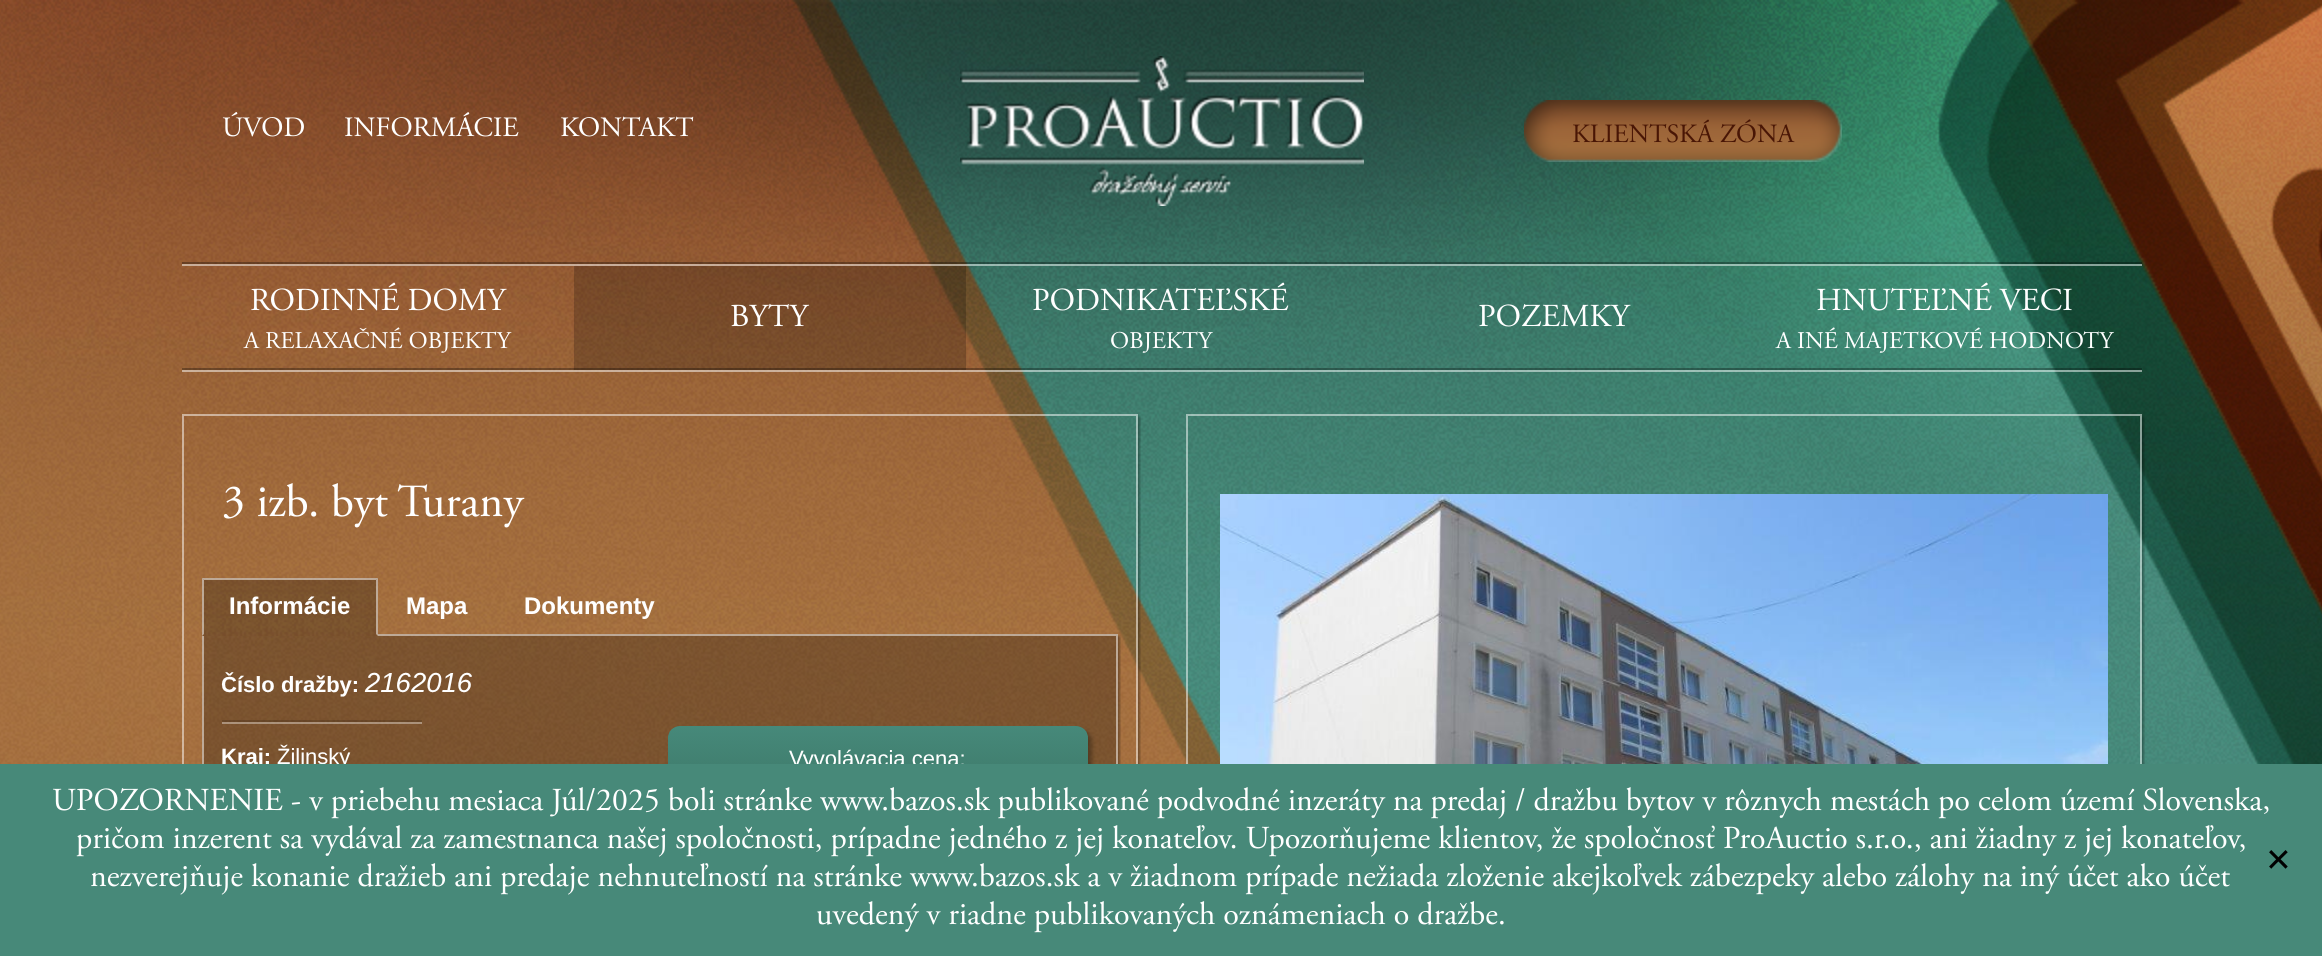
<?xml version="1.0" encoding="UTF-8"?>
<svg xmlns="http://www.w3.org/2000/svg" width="2322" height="956">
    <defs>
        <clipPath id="clip1"><rect x="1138" y="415" width="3" height="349"/></clipPath>
        <filter id="blur1" x="-50%" y="-200%" width="200%" height="500%"><feGaussianBlur stdDeviation="1"/></filter>
        <clipPath id="clip2"><rect x="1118" y="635" width="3" height="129"/></clipPath>
        <filter id="blur2" x="-50%" y="-200%" width="200%" height="500%"><feGaussianBlur stdDeviation="2"/></filter>
        <linearGradient id="g1" gradientUnits="userSpaceOnUse" x1="878" y1="726" x2="878" y2="842"><stop offset="0" stop-color="#46897A"/><stop offset="1" stop-color="#386E5D"/></linearGradient>
        <clipPath id="clip3"><rect x="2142" y="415" width="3" height="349"/></clipPath>
    </defs>
    <rect width="100%" height="100%" fill="#FFFFFF"/>
    <image x="0" y="0" width="2322" height="764" href="img_01.png"/>
    <image x="222" y="112" width="82" height="25" href="img_02.png"/>
    <image x="345" y="112" width="174" height="25" href="img_03.png"/>
    <image x="561" y="116" width="133" height="21" href="img_04.png"/>
    <image x="960" y="56" width="404" height="150" href="img_05.png"/>
    <image x="1524" y="100" width="318" height="62" href="img_06.png"/>
    <image x="1573" y="119" width="222" height="24" href="img_07.png"/>
    <rect x="182" y="262" width="1960" height="2" fill="#000000" fill-opacity="0.3"/>
    <rect x="182" y="368" width="1960" height="2" fill="#000000" fill-opacity="0.3"/>
    <rect x="182" y="264" width="1960" height="2" fill="#FEFFFF" fill-opacity="0.5"/>
    <rect x="182" y="370" width="1960" height="2" fill="#FEFFFF" fill-opacity="0.5"/>
    <image x="251" y="282" width="256" height="29" href="img_08.png"/>
    <image x="243" y="327" width="269" height="26" href="img_09.png"/>
    <rect x="574" y="266" width="392" height="104" fill="#000000" fill-opacity="0.2"/>
    <image x="731" y="303" width="79" height="24" href="img_10.png"/>
    <image x="1033" y="282" width="256" height="29" href="img_11.png"/>
    <image x="1111" y="331" width="102" height="22" href="img_12.png"/>
    <image x="1479" y="304" width="152" height="23" href="img_13.png"/>
    <image x="1817" y="282" width="255" height="29" href="img_14.png"/>
    <image x="1775" y="327" width="339" height="26" href="img_15.png"/>
    <g clip-path="url(#clip1)">
        <rect x="184" y="416" width="956" height="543" fill="#000000" fill-opacity="0.3" filter="url(#blur1)"/>
    </g>
    <rect x="183" y="415" width="954" height="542" fill="none" stroke="#FFFFFF" stroke-opacity="0.5" stroke-width="2"/>
    <image x="223" y="483" width="302" height="45" href="img_16.png"/>
    <g clip-path="url(#clip2)">
        <rect x="204" y="636" width="916" height="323" fill="#000000" fill-opacity="0.3" filter="url(#blur1)"/>
    </g>
    <rect x="202" y="634" width="916" height="130" fill="#000000" fill-opacity="0.25"/>
    <rect x="203" y="635" width="914" height="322" fill="none" stroke="#FFFFFF" stroke-opacity="0.5" stroke-width="2"/>
    <image x="202" y="578" width="176" height="58" href="img_17.png"/>
    <path d="M 202 578 H 378 L 376 580 H 204 Z" fill="#FFFFFF" fill-opacity="0.5"/>
    <path d="M 378 578 V 636 L 376 634 V 580 Z" fill="#FFFFFF" fill-opacity="0.5"/>
    <path d="M 202 636 V 578 L 204 580 V 634 Z" fill="#FFFFFF" fill-opacity="0.5"/>
    <text x="229" y="614" font-family="Liberation Sans" font-size="24" font-weight="700" fill="#FFFFFF">Informácie</text>
    <text x="406" y="614" font-family="Liberation Sans" font-size="24" font-weight="700" fill="#FFFFFF">Mapa</text>
    <text x="524" y="614" font-family="Liberation Sans" font-size="24" font-weight="700" fill="#FFFFFF">Dokumenty</text>
    <text x="221" y="692" font-family="Liberation Sans" font-size="22" font-weight="700" fill="#FFFFFF">Číslo dražby:</text>
    <text x="365" y="692" font-family="Liberation Sans" font-size="27.5" font-style="italic" fill="#FFFFFF">2162016</text>
    <rect x="222" y="720" width="200" height="2" fill="#000000" fill-opacity="0.15"/>
    <rect x="222" y="722" width="200" height="2" fill="#FFFFFF" fill-opacity="0.37"/>
    <text x="221" y="764" font-family="Liberation Sans" font-size="22" font-weight="700" fill="#FFFFFF">Kraj:</text>
    <text x="277" y="764" font-family="Liberation Sans" font-size="22" fill="#FFFFFF">Žilinský</text>
    <rect x="672" y="730" width="420" height="116" rx="12" fill="#000000" fill-opacity="0.3" filter="url(#blur2)"/>
    <rect x="668" y="726" width="420" height="116" rx="12" fill="url(#g1)"/>
    <text x="789" y="766" font-family="Liberation Sans" font-size="22" fill="#FFFFFF">Vyvolávacia cena:</text>
    <g clip-path="url(#clip3)">
        <rect x="1188" y="416" width="956" height="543" fill="#000000" fill-opacity="0.3" filter="url(#blur1)"/>
    </g>
    <rect x="1187" y="415" width="954" height="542" fill="none" stroke="#FFFFFF" stroke-opacity="0.5" stroke-width="2"/>
    <image x="1220" y="494" width="888" height="270" href="img_18.png"/>
    <rect x="0" y="764" width="2322" height="192" fill="#478979"/>
    <image x="53" y="787" width="2216" height="32" href="img_19.png"/>
    <image x="76" y="825" width="2169" height="32" href="img_20.png"/>
    <image x="91" y="863" width="2139" height="32" href="img_21.png"/>
    <image x="817" y="901" width="687" height="32" href="img_22.png"/>
    <text x="2265" y="871" font-family="DejaVu Sans" font-size="32" fill="#000000">✕</text>
</svg>
